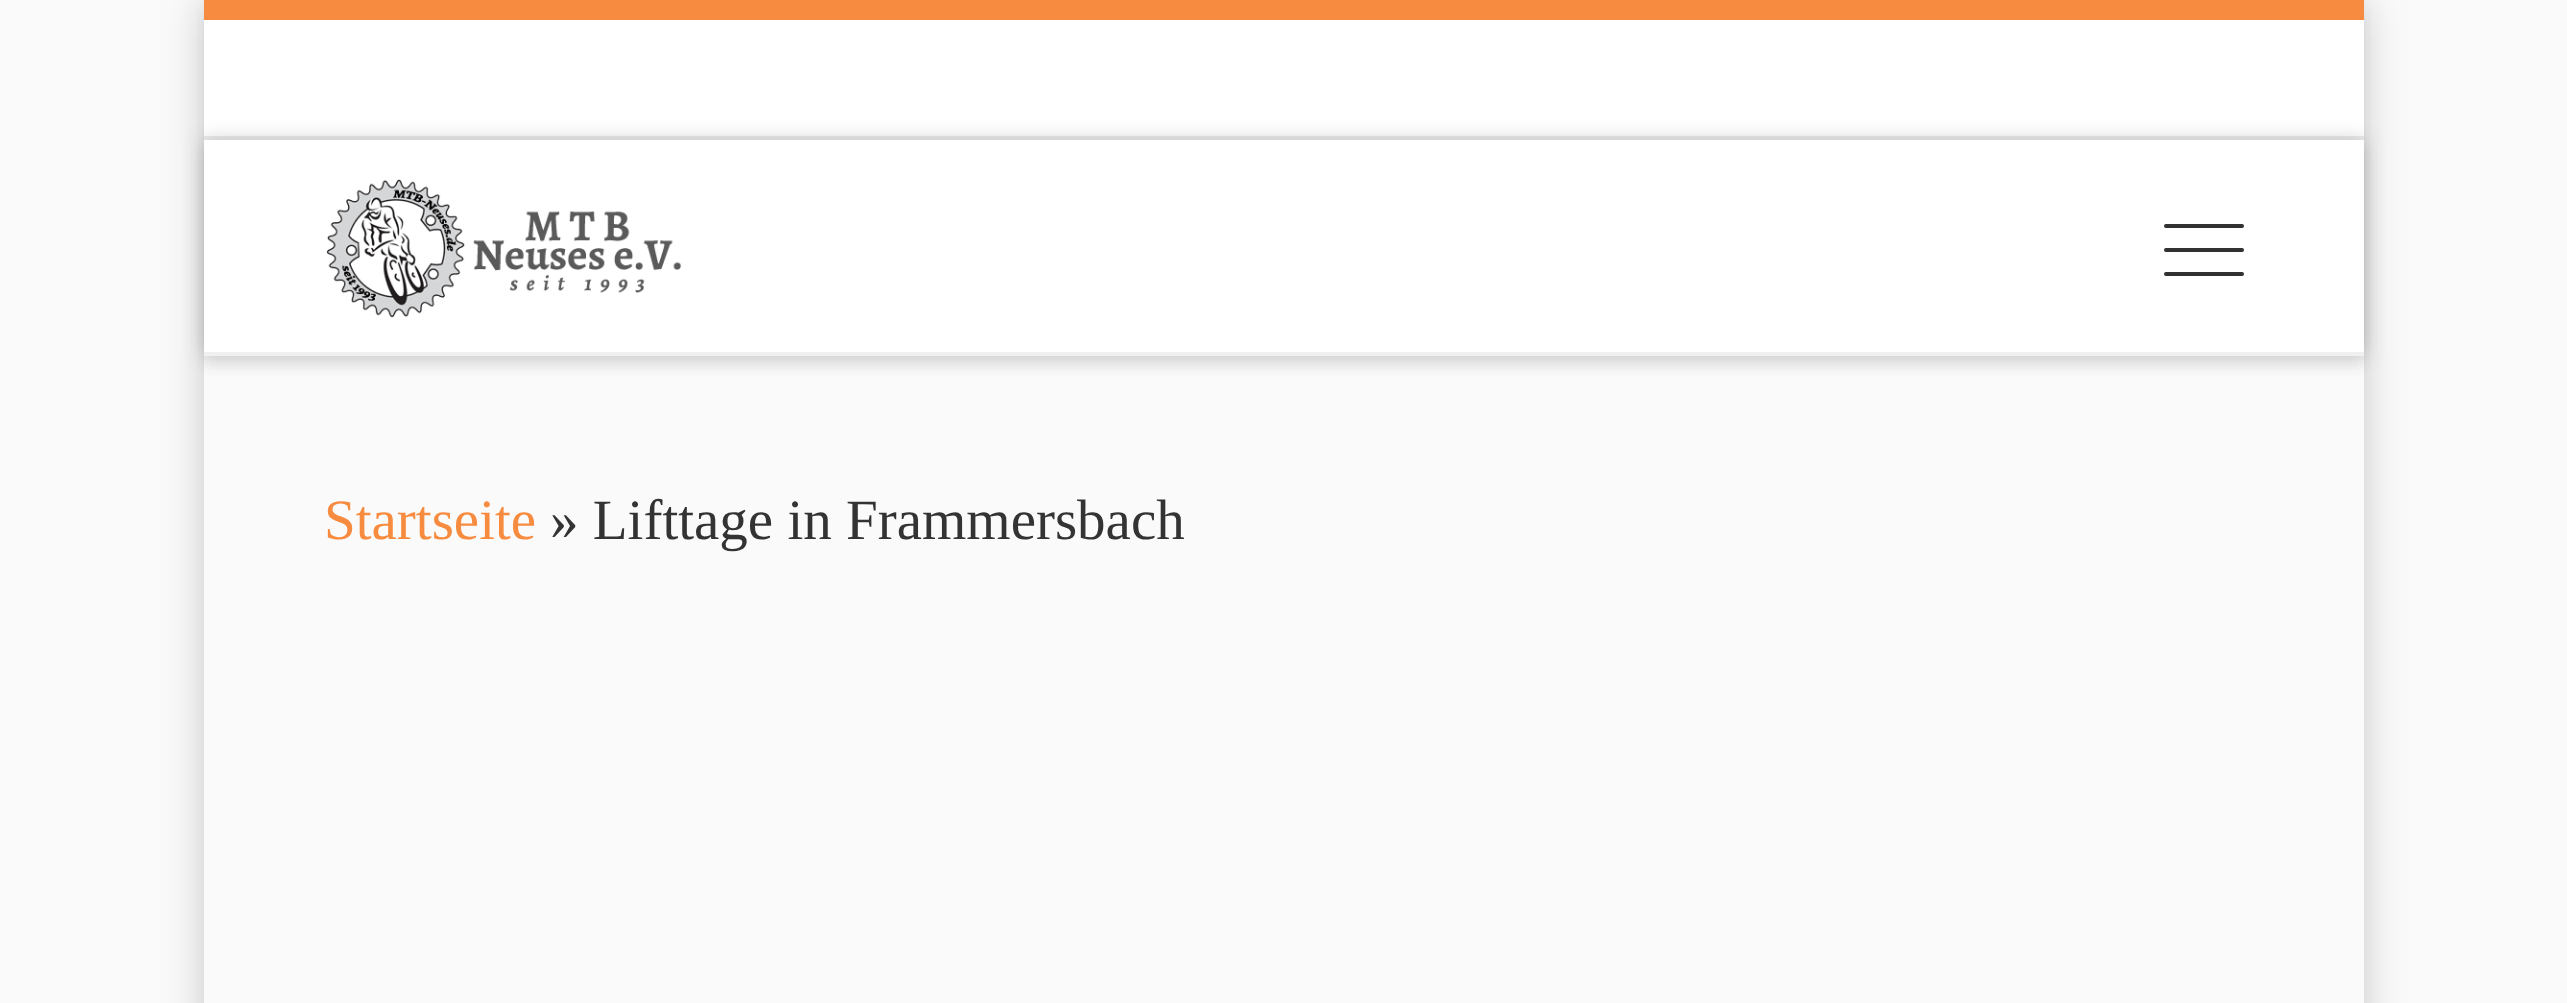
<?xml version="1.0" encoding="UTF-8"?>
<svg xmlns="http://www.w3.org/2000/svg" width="2567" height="1003">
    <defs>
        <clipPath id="clip1"><path d="M 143 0 H 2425 V 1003 H 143 Z M 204 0 H 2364 V 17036 H 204 Z" clip-rule="evenodd"/></clipPath>
        <filter id="blur1" x="-50%" y="-200%" width="200%" height="500%"><feGaussianBlur stdDeviation="20"/></filter>
        <filter id="blur2" x="-50%" y="-200%" width="200%" height="500%"><feGaussianBlur stdDeviation="4"/></filter>
        <clipPath id="clip2"><path d="M 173 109 H 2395 V 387 H 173 Z M 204 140 H 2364 V 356 H 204 Z" clip-rule="evenodd"/></clipPath>
        <filter id="blur3" x="-50%" y="-200%" width="200%" height="500%"><feGaussianBlur stdDeviation="10"/></filter>
    </defs>
    <rect width="100%" height="100%" fill="#FAFAFA"/>
    <g clip-path="url(#clip1)">
        <rect x="204" y="0" width="2160" height="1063" fill="#000000" fill-opacity="0.2" filter="url(#blur1)"/>
    </g>
    <rect x="204" y="8" width="2160" height="360" fill="#666666" fill-opacity="0.08" filter="url(#blur2)"/>
    <rect x="204" y="20" width="2160" height="332" fill="#FFFFFF"/>
    <rect x="204" y="0" width="2160" height="20" fill="#F78C40"/>
    <rect x="204" y="356" width="2160" height="4" fill="#EFEFEF"/>
    <rect x="204" y="136" width="2160" height="4" fill="#ECECEC"/>
    <g clip-path="url(#clip2)">
        <rect x="204" y="140" width="2160" height="216" fill="#000000" fill-opacity="0.2" filter="url(#blur3)"/>
    </g>
    <image x="326" y="179" width="356" height="139" href="img_01.png"/>
    <rect x="2164" y="224" width="80" height="4" rx="2" fill="#313131"/>
    <rect x="2164" y="248" width="80" height="4" rx="2" fill="#313131"/>
    <rect x="2164" y="272" width="80" height="4" rx="2" fill="#313131"/>
    <rect x="204" y="352" width="2160" height="4" fill="#F0F0F0"/>
    <text x="324" y="539" font-family="Liberation Serif" font-size="57" fill="#F78C40">Startseite</text>
    <text x="550" y="539" font-family="Liberation Serif" font-size="57" fill="#333333">» Lifttage in Frammersbach</text>
</svg>
